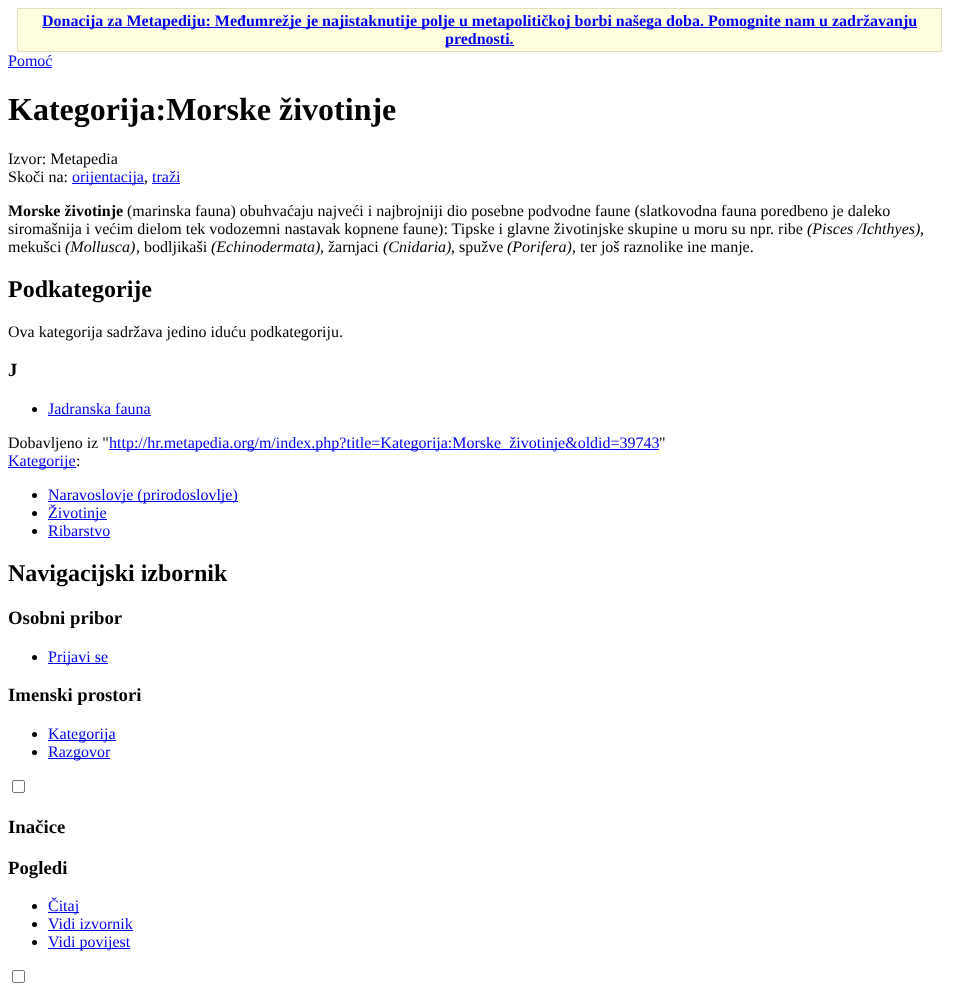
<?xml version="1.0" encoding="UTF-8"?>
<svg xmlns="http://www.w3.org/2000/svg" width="959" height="1007">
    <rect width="100%" height="100%" fill="#FFFFFF"/>
    <rect x="17.5" y="8.5" width="924" height="43" fill="#FFFFE0" stroke="#E0E0C0"/>
    <rect x="42" y="27" width="875" height="1" fill="#0000EE"/>
    <text x="42" y="26" font-family="Liberation Serif" font-size="16" font-weight="700" fill="#0000EE">Donacija za Metapediju: Međumrežje je najistaknutije polje u metapolitičkoj borbi našega doba. Pomognite nam u zadržavanju</text>
    <rect x="445" y="45" width="69" height="1" fill="#0000EE"/>
    <text x="445" y="44" font-family="Liberation Serif" font-size="16" font-weight="700" fill="#0000EE">prednosti.</text>
    <text x="8" y="66" font-family="Liberation Serif" font-size="16" fill="#0000EE">Pomoć</text>
    <rect x="8" y="67" width="44" height="1" fill="#0000EE"/>
    <text x="8" y="120" font-family="Liberation Serif" font-size="32" font-weight="700" fill="#000000">Kategorija:Morske životinje</text>
    <text font-family="Liberation Serif" font-size="16" fill="#000000">
        <tspan x="8" y="164">Izvor: Metapedia</tspan>
        <tspan x="8" y="182">Skoči na:</tspan>
    </text>
    <rect x="72" y="183" width="72" height="1" fill="#0000EE"/>
    <text x="72" y="182" font-family="Liberation Serif" font-size="16" fill="#0000EE">orijentacija</text>
    <text x="144" y="182" font-family="Liberation Serif" font-size="16" fill="#000000">,</text>
    <text x="152" y="182" font-family="Liberation Serif" font-size="16" fill="#0000EE">traži</text>
    <rect x="152" y="183" width="28" height="1" fill="#0000EE"/>
    <text x="8" y="216" font-family="Liberation Serif" font-size="16" font-weight="700" fill="#000000">Morske životinje</text>
    <text x="127" y="216" font-family="Liberation Serif" font-size="16" fill="#000000">(marinska fauna) obuhvaćaju najveći i najbrojniji dio posebne podvodne faune (slatkovodna fauna poredbeno je daleko</text>
    <text x="8" y="234" font-family="Liberation Serif" font-size="16" fill="#000000">siromašnija i većim dielom tek vodozemni nastavak kopnene faune): Tipske i glavne životinjske skupine u moru su npr. ribe</text>
    <text x="807" y="234" font-family="Liberation Serif" font-size="16" font-style="italic" fill="#000000">(Pisces /Ichthyes)</text>
    <text x="920" y="234" font-family="Liberation Serif" font-size="16" fill="#000000">,</text>
    <text x="8" y="252" font-family="Liberation Serif" font-size="16" fill="#000000">mekušci</text>
    <text x="65" y="252" font-family="Liberation Serif" font-size="16" font-style="italic" fill="#000000">(Mollusca)</text>
    <text x="136" y="252" font-family="Liberation Serif" font-size="16" fill="#000000">, bodljikaši</text>
    <text x="211" y="252" font-family="Liberation Serif" font-size="16" font-style="italic" fill="#000000">(Echinodermata)</text>
    <text x="320" y="252" font-family="Liberation Serif" font-size="16" fill="#000000">, žarnjaci</text>
    <text x="383" y="252" font-family="Liberation Serif" font-size="16" font-style="italic" fill="#000000">(Cnidaria)</text>
    <text x="451" y="252" font-family="Liberation Serif" font-size="16" fill="#000000">, spužve</text>
    <text x="507" y="252" font-family="Liberation Serif" font-size="16" font-style="italic" fill="#000000">(Porifera)</text>
    <text x="572" y="252" font-family="Liberation Serif" font-size="16" fill="#000000">, ter još raznolike ine manje.</text>
    <text x="8" y="297" font-family="Liberation Serif" font-size="24" font-weight="700" fill="#000000">Podkategorije</text>
    <text x="8" y="337" font-family="Liberation Serif" font-size="16" fill="#000000">Ova kategorija sadržava jedino iduću podkategoriju.</text>
    <text x="8" y="376" font-family="Liberation Serif" font-size="18.75" font-weight="700" fill="#000000">J</text>
    <circle cx="34.5" cy="409.5" r="2.5" fill="#000000"/>
    <text x="48" y="414" font-family="Liberation Serif" font-size="16" fill="#0000EE">Jadranska fauna</text>
    <rect x="48" y="415" width="103" height="1" fill="#0000EE"/>
    <text x="8" y="448" font-family="Liberation Serif" font-size="16" fill="#000000">Dobavljeno iz "</text>
    <rect x="109" y="449" width="550" height="1" fill="#0000EE"/>
    <text x="109" y="448" font-family="Liberation Serif" font-size="16" fill="#0000EE">http://hr.metapedia.org/m/index.php?title=Kategorija:Morske_životinje&amp;oldid=39743</text>
    <text x="659" y="448" font-family="Liberation Serif" font-size="16" fill="#000000">"</text>
    <rect x="8" y="467" width="68" height="1" fill="#0000EE"/>
    <text x="8" y="466" font-family="Liberation Serif" font-size="16" fill="#0000EE">Kategorije</text>
    <text x="76" y="466" font-family="Liberation Serif" font-size="16" fill="#000000">:</text>
    <circle cx="34.5" cy="495.5" r="2.5" fill="#000000"/>
    <rect x="48" y="501" width="190" height="1" fill="#0000EE"/>
    <text x="48" y="500" font-family="Liberation Serif" font-size="16" fill="#0000EE">Naravoslovje (prirodoslovlje)</text>
    <circle cx="34.5" cy="513.5" r="2.5" fill="#000000"/>
    <rect x="48" y="519" width="59" height="1" fill="#0000EE"/>
    <text x="48" y="518" font-family="Liberation Serif" font-size="16" fill="#0000EE">Životinje</text>
    <circle cx="34.5" cy="531.5" r="2.5" fill="#000000"/>
    <text x="48" y="536" font-family="Liberation Serif" font-size="16" fill="#0000EE">Ribarstvo</text>
    <rect x="48" y="537" width="62" height="1" fill="#0000EE"/>
    <text x="8" y="581" font-family="Liberation Serif" font-size="24" font-weight="700" fill="#000000">Navigacijski izbornik</text>
    <text x="8" y="624" font-family="Liberation Serif" font-size="18.75" font-weight="700" fill="#000000">Osobni pribor</text>
    <circle cx="34.5" cy="657.5" r="2.5" fill="#000000"/>
    <rect x="48" y="663" width="60" height="1" fill="#0000EE"/>
    <text x="48" y="662" font-family="Liberation Serif" font-size="16" fill="#0000EE">Prijavi se</text>
    <text x="8" y="701" font-family="Liberation Serif" font-size="18.75" font-weight="700" fill="#000000">Imenski prostori</text>
    <circle cx="34.5" cy="734.5" r="2.5" fill="#000000"/>
    <rect x="48" y="740" width="68" height="1" fill="#0000EE"/>
    <text x="48" y="739" font-family="Liberation Serif" font-size="16" fill="#0000EE">Kategorija</text>
    <circle cx="34.5" cy="752.5" r="2.5" fill="#000000"/>
    <rect x="48" y="758" width="62" height="1" fill="#0000EE"/>
    <text x="48" y="757" font-family="Liberation Serif" font-size="16" fill="#0000EE">Razgovor</text>
    <rect x="12.5" y="780.5" width="12" height="12" rx="1.5" fill="none" stroke="#767676"/>
    <text x="8" y="833" font-family="Liberation Serif" font-size="18.75" font-weight="700" fill="#000000">Inačice</text>
    <text x="8" y="874" font-family="Liberation Serif" font-size="18.75" font-weight="700" fill="#000000">Pogledi</text>
    <circle cx="34.5" cy="906.5" r="2.5" fill="#000000"/>
    <rect x="48" y="912" width="31" height="1" fill="#0000EE"/>
    <text x="48" y="911" font-family="Liberation Serif" font-size="16" fill="#0000EE">Čitaj</text>
    <circle cx="34.5" cy="924.5" r="2.5" fill="#000000"/>
    <text x="48" y="929" font-family="Liberation Serif" font-size="16" fill="#0000EE">Vidi izvornik</text>
    <rect x="48" y="930" width="85" height="1" fill="#0000EE"/>
    <circle cx="34.5" cy="942.5" r="2.5" fill="#000000"/>
    <rect x="48" y="948" width="82" height="1" fill="#0000EE"/>
    <text x="48" y="947" font-family="Liberation Serif" font-size="16" fill="#0000EE">Vidi povijest</text>
    <rect x="12.5" y="970.5" width="12" height="12" rx="1.5" fill="none" stroke="#767676"/>
</svg>
